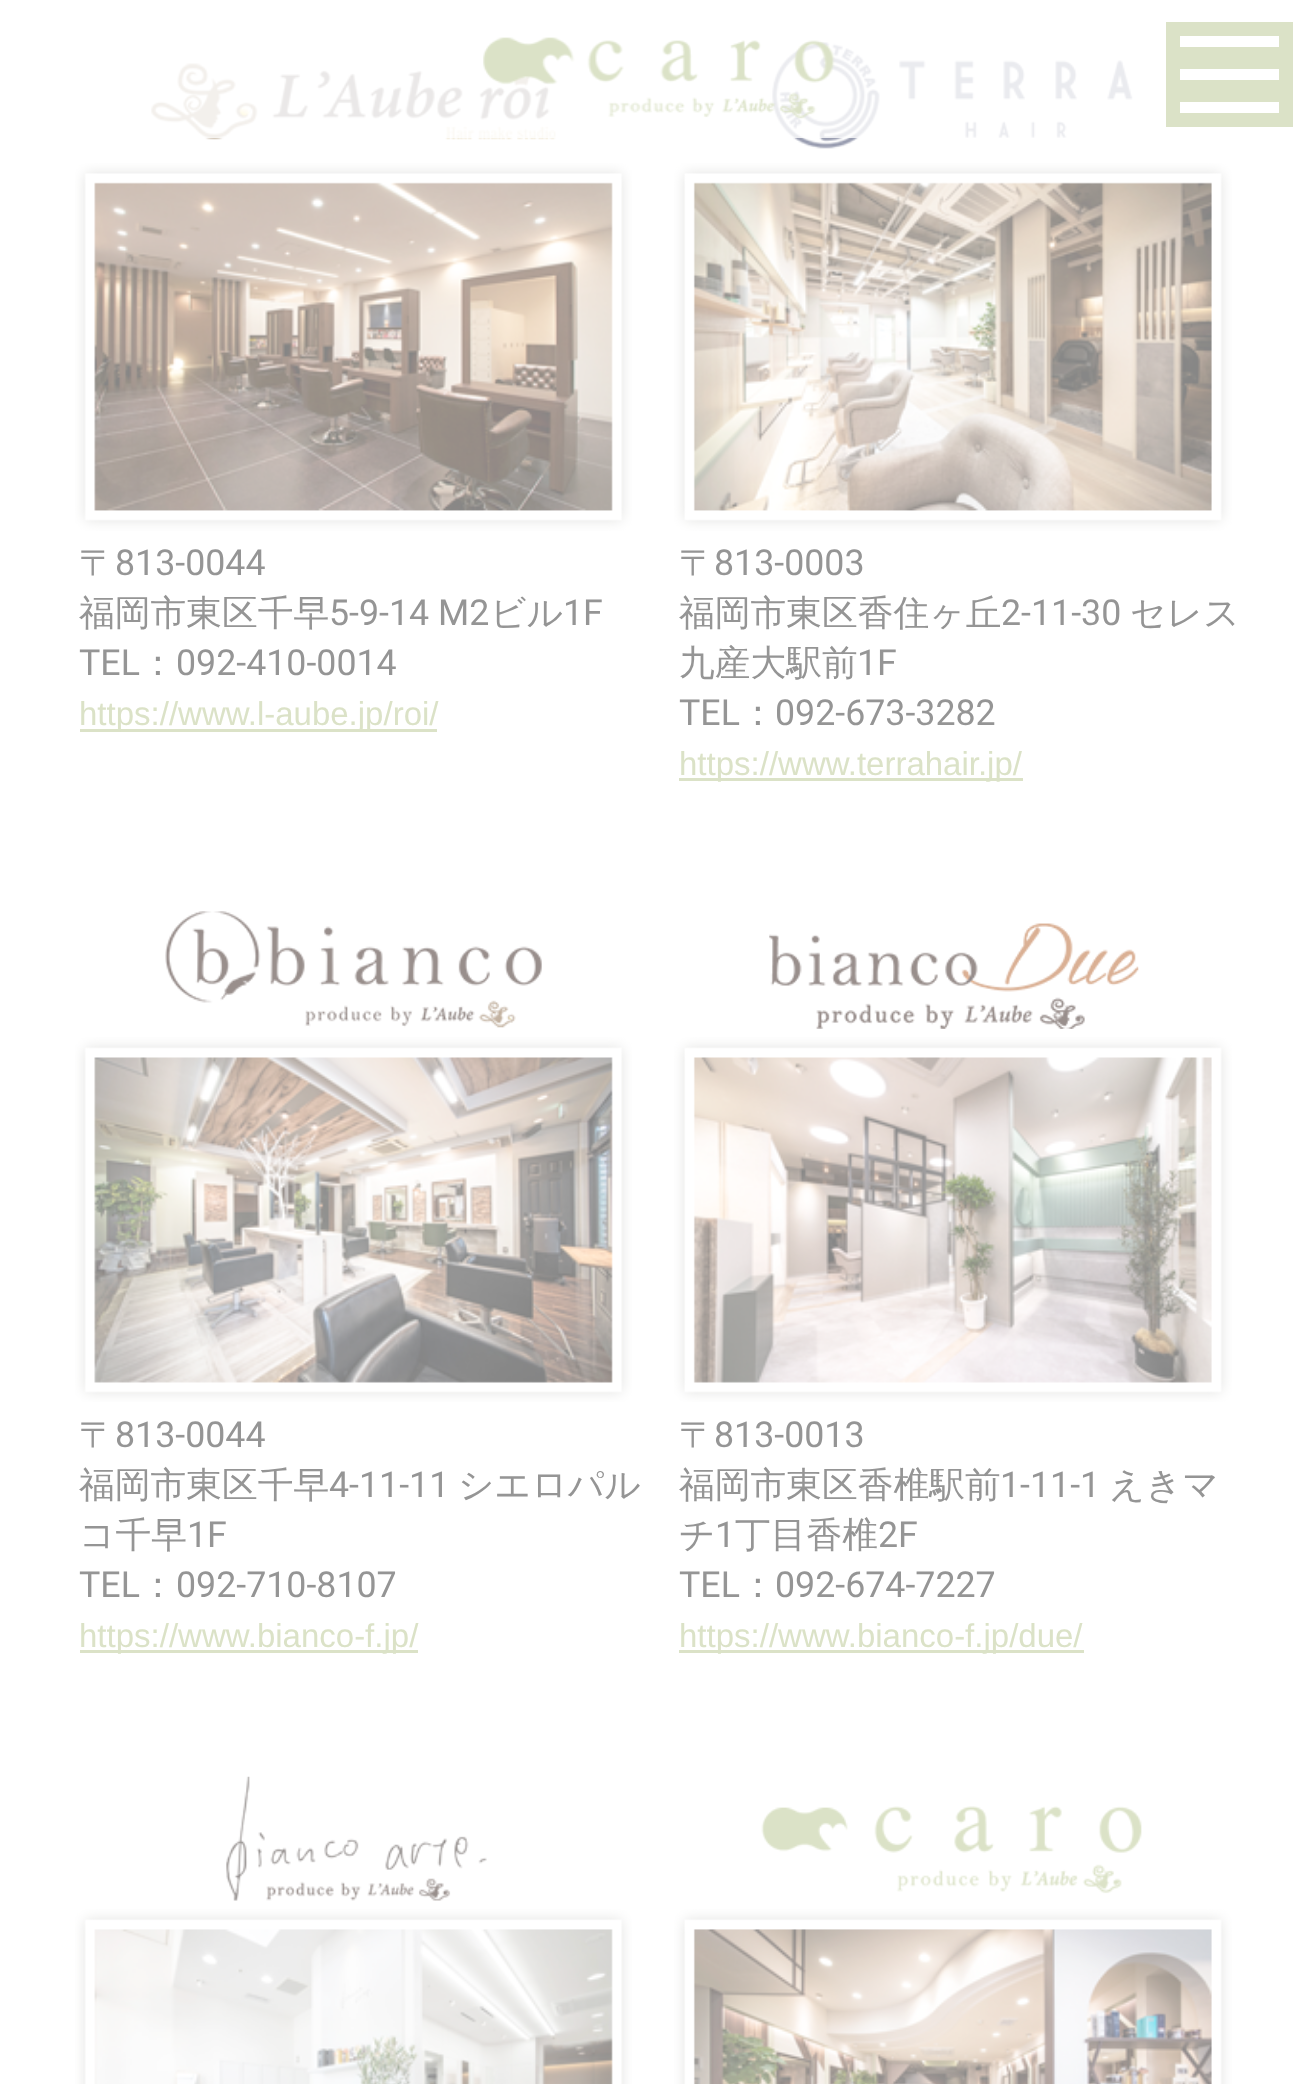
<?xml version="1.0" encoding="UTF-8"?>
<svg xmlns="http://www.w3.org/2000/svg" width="1304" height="2084">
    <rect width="100%" height="100%" fill="#FFFFFF"/>
    <image x="151" y="63" width="405" height="77" href="img_02.png"/>
    <image x="772" y="42" width="361" height="107" href="img_04.png"/>
    <rect x="151" y="42" width="982" height="96" fill="#FFFFFF" fill-opacity="0.8"/>
    <image x="483" y="37" width="352" height="82" href="img_01.png"/>
    <rect x="1166" y="22" width="127" height="105" fill="#DBE2C7"/>
    <rect x="1180" y="36" width="99" height="11" fill="#FFFFFF"/>
    <rect x="1180" y="69" width="99" height="11" fill="#FFFFFF"/>
    <rect x="1180" y="102" width="99" height="11" fill="#FFFFFF"/>
    <image x="75" y="163" width="557" height="368" href="img_03.png"/>
    <text x="79" y="575" font-family="WenQuanYi Zen Hei" font-size="35.75" font-weight="500" fill="#959595">〒</text>
    <text x="115" y="575" font-family="Roboto" font-size="35.75" fill="#959595">813-0044</text>
    <text x="79" y="625" font-family="WenQuanYi Zen Hei" font-size="35.75" font-weight="500" fill="#959595">福岡市東区千早</text>
    <text x="329" y="625" font-family="Roboto" font-size="35.75" fill="#959595">5-9-14 M2</text>
    <text x="490" y="625" font-family="WenQuanYi Zen Hei" font-size="35.75" font-weight="500" fill="#959595">ビル</text>
    <text x="563" y="625" font-family="Roboto" font-size="35.75" fill="#959595">1F</text>
    <text x="79" y="675" font-family="Roboto" font-size="35.75" fill="#959595">TEL</text>
    <text x="140" y="675" font-family="WenQuanYi Zen Hei" font-size="35.75" font-weight="500" fill="#959595">：</text>
    <text x="176" y="675" font-family="Roboto" font-size="35.75" fill="#959595">092-410-0014</text>
    <rect x="80" y="729" width="357" height="3" fill="#DBE2C7"/>
    <text x="79" y="725" font-family="Liberation Sans" font-size="33" fill="#DBE2C7">https://www.l-aube.jp/roi/</text>
    <image x="674" y="163" width="558" height="368" href="img_05.png"/>
    <text x="679" y="575" font-family="WenQuanYi Zen Hei" font-size="35.75" font-weight="500" fill="#959595">〒</text>
    <text x="714" y="575" font-family="Roboto" font-size="35.75" fill="#959595">813-0003</text>
    <text x="679" y="625" font-family="WenQuanYi Zen Hei" font-size="35.75" font-weight="500" fill="#959595">福岡市東区香住ヶ丘</text>
    <text x="1001" y="625" font-family="Roboto" font-size="35.75" fill="#959595">2-11-30</text>
    <text x="1130" y="625" font-family="WenQuanYi Zen Hei" font-size="35.75" font-weight="500" fill="#959595">セレス</text>
    <text x="679" y="675" font-family="WenQuanYi Zen Hei" font-size="35.75" font-weight="500" fill="#959595">九産大駅前</text>
    <text x="857" y="675" font-family="Roboto" font-size="35.75" fill="#959595">1F</text>
    <text x="679" y="725" font-family="Roboto" font-size="35.75" fill="#959595">TEL</text>
    <text x="740" y="725" font-family="WenQuanYi Zen Hei" font-size="35.75" font-weight="500" fill="#959595">：</text>
    <text x="775" y="725" font-family="Roboto" font-size="35.75" fill="#959595">092-673-3282</text>
    <rect x="679" y="778" width="344" height="3" fill="#DBE2C7"/>
    <text x="679" y="775" font-family="Liberation Sans" font-size="33" fill="#DBE2C7">https://www.terrahair.jp/</text>
    <image x="165" y="911" width="377" height="117" href="img_06.png"/>
    <image x="75" y="1037" width="557" height="365" href="img_07.png"/>
    <text x="79" y="1447" font-family="WenQuanYi Zen Hei" font-size="35.75" font-weight="500" fill="#959595">〒</text>
    <text x="115" y="1447" font-family="Roboto" font-size="35.75" fill="#959595">813-0044</text>
    <text x="79" y="1497" font-family="WenQuanYi Zen Hei" font-size="35.75" font-weight="500" fill="#959595">福岡市東区千早</text>
    <text x="329" y="1497" font-family="Roboto" font-size="35.75" fill="#959595">4-11-11</text>
    <text x="458" y="1497" font-family="WenQuanYi Zen Hei" font-size="35.75" font-weight="500" fill="#959595">シエロパル</text>
    <text x="79" y="1547" font-family="WenQuanYi Zen Hei" font-size="35.75" font-weight="500" fill="#959595">コ千早</text>
    <text x="187" y="1547" font-family="Roboto" font-size="35.75" fill="#959595">1F</text>
    <text x="79" y="1597" font-family="Roboto" font-size="35.75" fill="#959595">TEL</text>
    <text x="140" y="1597" font-family="WenQuanYi Zen Hei" font-size="35.75" font-weight="500" fill="#959595">：</text>
    <text x="176" y="1597" font-family="Roboto" font-size="35.75" fill="#959595">092-710-8107</text>
    <rect x="80" y="1650" width="338" height="3" fill="#DBE2C7"/>
    <text x="79" y="1647" font-family="Liberation Sans" font-size="33" fill="#DBE2C7">https://www.bianco-f.jp/</text>
    <image x="769" y="923" width="370" height="106" href="img_08.png"/>
    <image x="674" y="1037" width="558" height="365" href="img_09.png"/>
    <text x="679" y="1447" font-family="WenQuanYi Zen Hei" font-size="35.75" font-weight="500" fill="#959595">〒</text>
    <text x="714" y="1447" font-family="Roboto" font-size="35.75" fill="#959595">813-0013</text>
    <text x="679" y="1497" font-family="WenQuanYi Zen Hei" font-size="35.75" font-weight="500" fill="#959595">福岡市東区香椎駅前</text>
    <text x="1000" y="1497" font-family="Roboto" font-size="35.75" fill="#959595">1-11-1</text>
    <text x="1109" y="1497" font-family="WenQuanYi Zen Hei" font-size="35.75" font-weight="500" fill="#959595">えきマ</text>
    <text x="679" y="1547" font-family="WenQuanYi Zen Hei" font-size="35.75" font-weight="500" fill="#959595">チ</text>
    <text x="715" y="1547" font-family="Roboto" font-size="35.75" fill="#959595">1</text>
    <text x="735" y="1547" font-family="WenQuanYi Zen Hei" font-size="35.75" font-weight="500" fill="#959595">丁目香椎</text>
    <text x="878" y="1547" font-family="Roboto" font-size="35.75" fill="#959595">2F</text>
    <text x="679" y="1597" font-family="Roboto" font-size="35.75" fill="#959595">TEL</text>
    <text x="740" y="1597" font-family="WenQuanYi Zen Hei" font-size="35.75" font-weight="500" fill="#959595">：</text>
    <text x="775" y="1597" font-family="Roboto" font-size="35.75" fill="#959595">092-674-7227</text>
    <rect x="679" y="1650" width="405" height="3" fill="#DBE2C7"/>
    <text x="679" y="1647" font-family="Liberation Sans" font-size="33" fill="#DBE2C7">https://www.bianco-f.jp/due/</text>
    <image x="226" y="1776" width="261" height="125" href="img_10.png"/>
    <image x="75" y="1909" width="557" height="175" href="img_11.png"/>
    <image x="761" y="1806" width="381" height="88" href="img_12.png"/>
    <image x="674" y="1909" width="558" height="175" href="img_13.png"/>
</svg>
